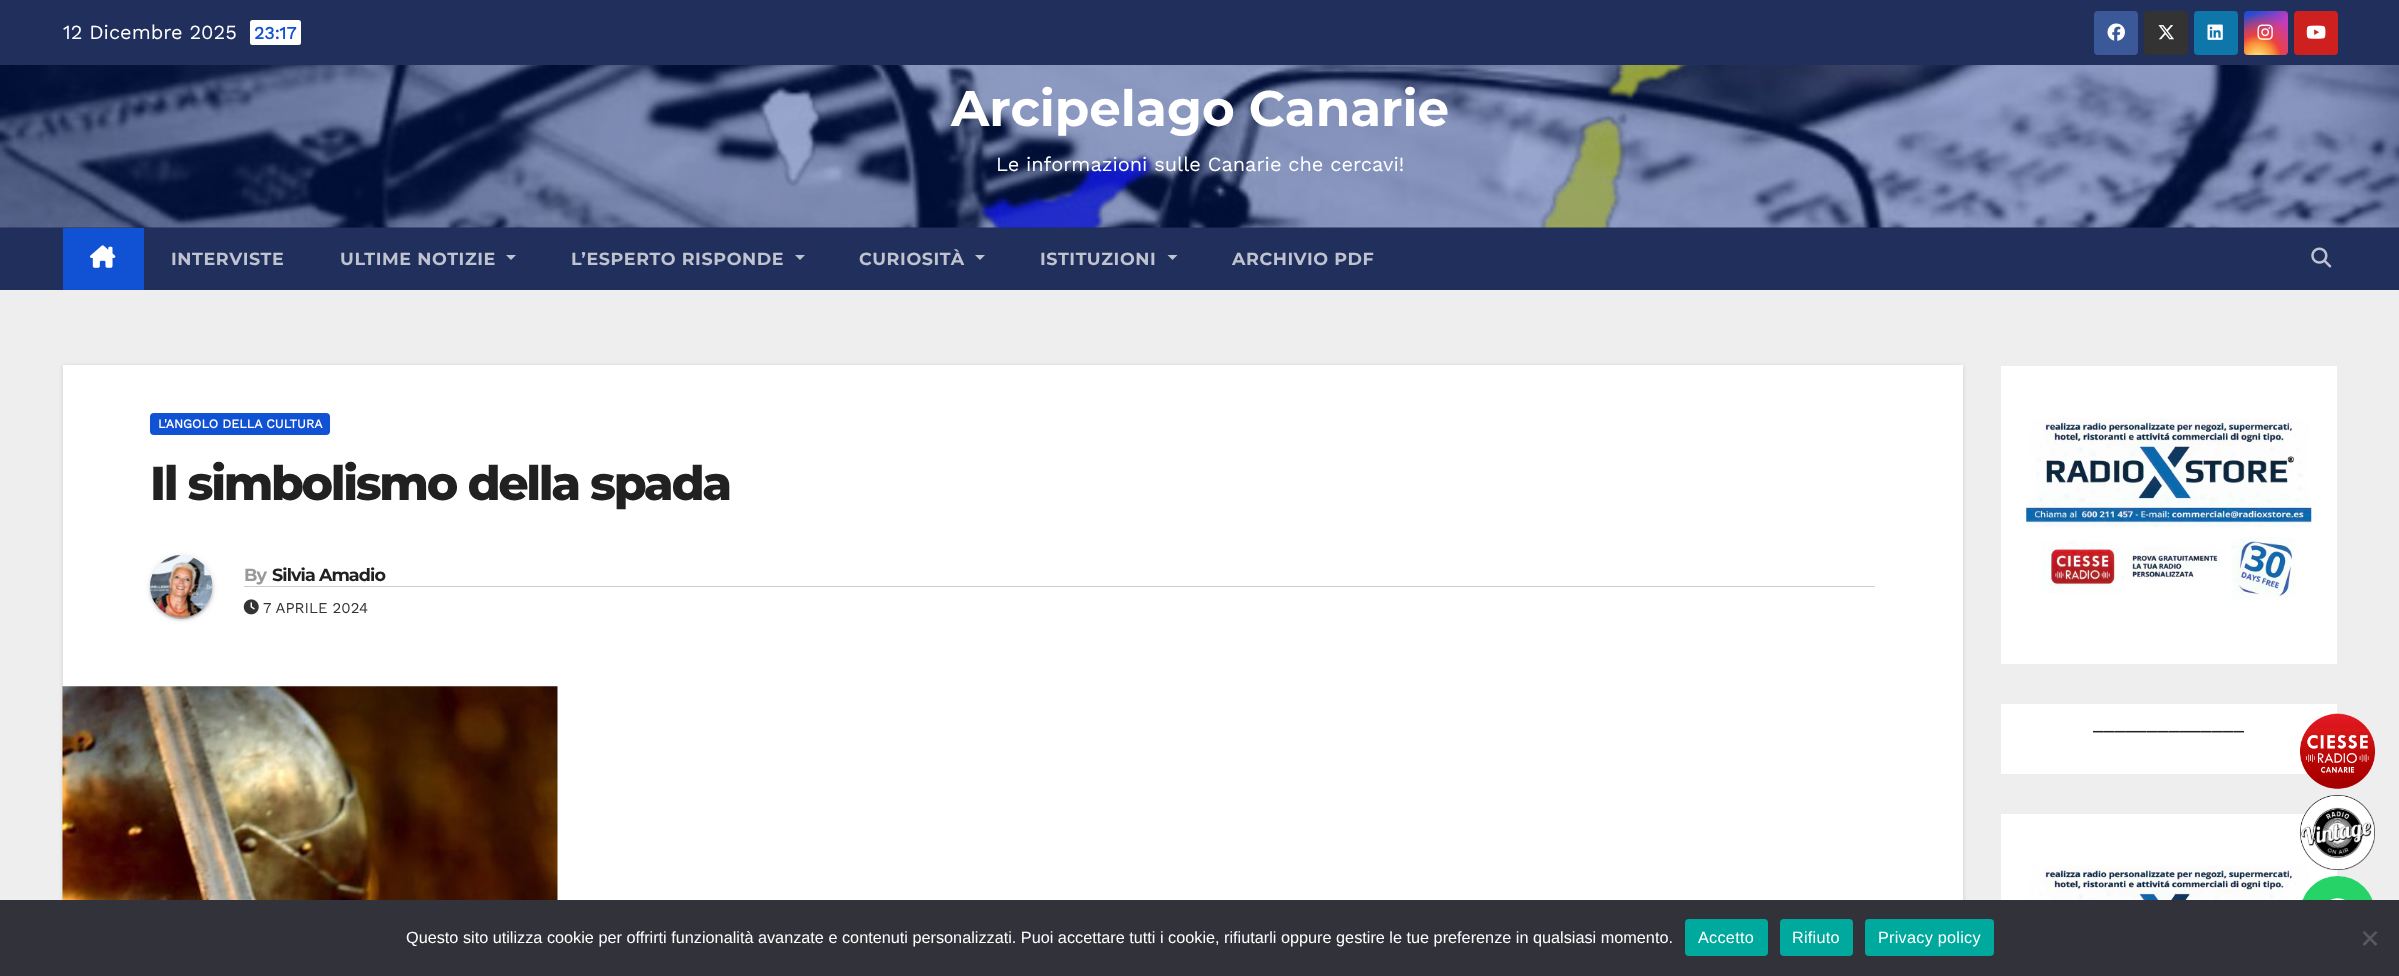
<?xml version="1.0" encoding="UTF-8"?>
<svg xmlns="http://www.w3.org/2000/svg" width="2399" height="976">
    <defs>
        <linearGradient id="g1" gradientUnits="userSpaceOnUse" x1="2244" y1="11" x2="2288" y2="55"><stop offset="0.12" stop-color="#234BD7"/><stop offset="0.58" stop-color="#C33CBE"/></linearGradient>
        <radialGradient id="g2" gradientUnits="userSpaceOnUse" cx="2258" cy="58" r="55"><stop offset="0" stop-color="#FFE17D"/><stop offset="0.1" stop-color="#FFCD69"/><stop offset="0.28" stop-color="#FA9137"/><stop offset="0.42" stop-color="#EB4141"/><stop offset="0.82" stop-color="#EB4141" stop-opacity="0"/></radialGradient>
        <filter id="blur1" x="-50%" y="-200%" width="200%" height="500%"><feGaussianBlur stdDeviation="2"/></filter>
        <filter id="blur2" x="-50%" y="-200%" width="200%" height="500%"><feGaussianBlur stdDeviation="3"/></filter>
        <filter id="blur3" x="-50%" y="-200%" width="200%" height="500%"><feGaussianBlur stdDeviation="0.5"/></filter>
        <filter id="blur4" x="-50%" y="-200%" width="200%" height="500%"><feGaussianBlur stdDeviation="1"/></filter>
    </defs>
    <rect width="100%" height="100%" fill="#EEEEEE"/>
    <rect x="0" y="0" width="2399" height="65" fill="#202F5B"/>
    <text x="63" y="39" font-family="Work Sans" font-size="20" fill="#FFFFFF">12 Dicembre 2025</text>
    <rect x="250" y="20" width="51" height="25" rx="2.5" fill="#FFFFFF"/>
    <text x="254" y="39" font-family="Work Sans" font-size="17.5" font-weight="700" fill="#1151D3">23:17</text>
    <rect x="2094" y="11" width="44" height="44" rx="4" fill="#3B5998"/>
    <image x="2107" y="23" width="18" height="18" href="img_01.png"/>
    <rect x="2144" y="11" width="44" height="44" rx="4" fill="#333333"/>
    <image x="2158" y="25" width="16" height="15" href="img_02.png"/>
    <rect x="2194" y="11" width="44" height="44" rx="4" fill="#0E76A8"/>
    <image x="2207" y="24" width="16" height="16" href="img_03.png"/>
    <rect x="2244" y="11" width="44" height="44" rx="4" fill="url(#g1)"/>
    <rect x="2244" y="11" width="44" height="44" rx="4" fill="url(#g2)"/>
    <image x="2257" y="24" width="16" height="16" href="img_04.png"/>
    <rect x="2294" y="11" width="44" height="44" rx="4" fill="#CD201F"/>
    <image x="2306" y="25" width="20" height="14" href="img_05.png"/>
    <rect x="0" y="227" width="2399" height="1" fill="#1F2C54"/>
    <image x="0" y="65" width="2399" height="163" href="img_06.png"/>
    <text x="951" y="126" font-family="Montserrat" font-size="50" font-weight="700" fill="#FFFFFF">Arcipelago Canarie</text>
    <text x="996" y="171" font-family="Work Sans" font-size="20" fill="#FFFFFF">Le informazioni sulle Canarie che cercavi!</text>
    <rect x="0" y="228" width="2399" height="62" fill="#202F5B"/>
    <rect x="63" y="228" width="81" height="62" fill="#1151D3"/>
    <image x="90" y="245" width="26" height="23" href="img_07.png"/>
    <text x="171" y="265" font-family="Montserrat" font-size="17.5" font-weight="700" letter-spacing="0.6" fill="#BEC3CF">INTERVISTE</text>
    <text x="340" y="265" font-family="Montserrat" font-size="17.5" font-weight="700" letter-spacing="0.6" fill="#BEC3CF">ULTIME NOTIZIE</text>
    <path d="M 506 255 H 516 L 511 260 Z" fill="#BEC3CF"/>
    <text x="571" y="265" font-family="Montserrat" font-size="17.5" font-weight="700" letter-spacing="0.6" fill="#BEC3CF">L’ESPERTO RISPONDE</text>
    <path d="M 795 255 H 805 L 800 260 Z" fill="#BEC3CF"/>
    <text x="859" y="265" font-family="Montserrat" font-size="17.5" font-weight="700" letter-spacing="0.6" fill="#BEC3CF">CURIOSITÀ</text>
    <path d="M 975 255 H 985 L 980 260 Z" fill="#BEC3CF"/>
    <text x="1040" y="265" font-family="Montserrat" font-size="17.5" font-weight="700" letter-spacing="0.6" fill="#BEC3CF">ISTITUZIONI</text>
    <path d="M 1167.5 255 H 1177.5 L 1172.5 260 Z" fill="#BEC3CF"/>
    <text x="1232" y="265" font-family="Montserrat" font-size="17.5" font-weight="700" letter-spacing="0.6" fill="#BEC3CF">ARCHIVIO PDF</text>
    <image x="2311" y="247" width="21" height="21" href="img_08.png"/>
    <rect x="63" y="366" width="1900" height="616" fill="#000000" fill-opacity="0.15" filter="url(#blur1)"/>
    <rect x="63" y="365" width="1900" height="535" fill="#FFFFFF"/>
    <rect x="150" y="413" width="180" height="22" rx="4" fill="#1151D3"/>
    <text x="158" y="428" font-family="Work Sans" font-size="12.5" font-weight="700" fill="#FFFFFF">L'ANGOLO DELLA CULTURA</text>
    <text x="150" y="500" font-family="Montserrat" font-size="47.5" font-weight="800" letter-spacing="-2.4" fill="#212121">Il simbolismo della spada</text>
    <rect x="150" y="556" width="63" height="63" rx="31.5" fill="#000000" fill-opacity="0.12" filter="url(#blur2)"/>
    <rect x="153" y="561" width="57" height="58" rx="28.5" fill="#000000" fill-opacity="0.2" filter="url(#blur3)"/>
    <rect x="150" y="558" width="63" height="62" rx="31" fill="#000000" fill-opacity="0.14" filter="url(#blur4)"/>
    <image x="150" y="555" width="63" height="63" href="img_09.png"/>
    <rect x="244" y="586" width="1631" height="1" fill="#CCCCCC"/>
    <text x="244" y="581" font-family="Montserrat" font-size="17.5" font-weight="700" letter-spacing="-0.9" fill="#999999">By</text>
    <text x="272" y="581" font-family="Montserrat" font-size="17.5" font-weight="700" letter-spacing="-0.9" fill="#212121">Silvia Amadio</text>
    <image x="243" y="599" width="16" height="16" href="img_10.png"/>
    <text x="263" y="613" font-family="Work Sans" font-size="15" fill="#333333">7 APRILE 2024</text>
    <image x="62" y="686" width="496" height="214" href="img_11.png"/>
    <rect x="2001" y="366" width="336" height="298" fill="#FFFFFF"/>
    <image x="2026" y="418" width="286" height="182" href="img_12.png"/>
    <rect x="2001" y="704" width="336" height="70" fill="#FFFFFF"/>
    <text x="2093" y="729" font-family="Work Sans" font-size="20" fill="#212529">______________</text>
    <rect x="2001" y="814" width="336" height="86" fill="#FFFFFF"/>
    <image x="2026" y="865" width="285" height="35" href="img_13.png"/>
    <image x="2300" y="713" width="75" height="76" href="img_14.png"/>
    <image x="2300" y="795" width="75" height="75" href="img_15.png"/>
    <circle cx="2337.5" cy="913.5" r="37.5" fill="#25D366"/>
    <rect x="0" y="900" width="2399" height="76" fill="#32323A"/>
    <text x="406" y="943" font-family="Liberation Sans" font-size="16.25" fill="#FFFFFF">Questo sito utilizza cookie per offrirti funzionalità avanzate e contenuti personalizzati. Puoi accettare tutti i cookie, rifiutarli oppure gestire le tue preferenze in qualsiasi momento.</text>
    <rect x="1685" y="919" width="83" height="37" rx="4" fill="#00A99D"/>
    <text x="1698" y="943" font-family="Liberation Sans" font-size="16.25" letter-spacing="0.25" fill="#FFFFFF">Accetto</text>
    <rect x="1780" y="919" width="73" height="37" rx="4" fill="#00A99D"/>
    <text x="1792" y="943" font-family="Liberation Sans" font-size="16.25" letter-spacing="0.25" fill="#FFFFFF">Rifiuto</text>
    <rect x="1865" y="919" width="129" height="37" rx="4" fill="#00A99D"/>
    <text x="1878" y="943" font-family="Liberation Sans" font-size="16.25" letter-spacing="0.25" fill="#FFFFFF">Privacy policy</text>
    <path d="M 2375.5 931 L 2377.5 932.5 L 2364.5 946 L 2362.5 944 Z" fill="#59595D"/>
    <path d="M 2362.5 932.5 L 2364.5 931 L 2377.5 944 L 2375.5 946 Z" fill="#59595D"/>
    <image x="2330" y="898" width="15" height="2" href="img_16.png"/>
</svg>
